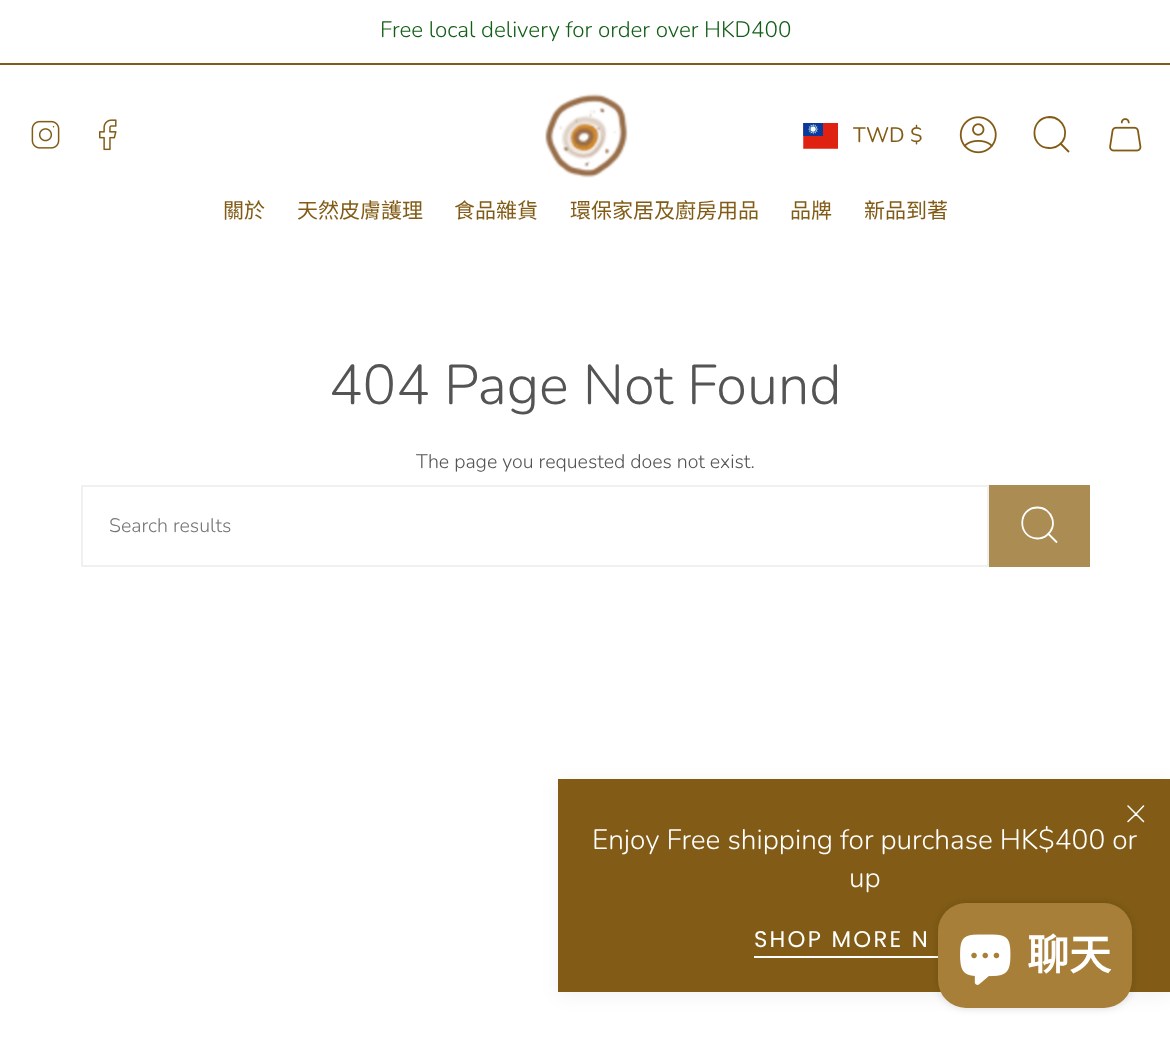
<?xml version="1.0" encoding="UTF-8"?>
<svg xmlns="http://www.w3.org/2000/svg" width="1170" height="1044">
    <defs>
        <filter id="blur1" x="-50%" y="-200%" width="200%" height="500%"><feGaussianBlur stdDeviation="9"/></filter>
        <filter id="blur2" x="-50%" y="-200%" width="200%" height="500%"><feGaussianBlur stdDeviation="4.5"/></filter>
    </defs>
    <rect width="100%" height="100%" fill="#FFFFFF"/>
    <rect x="0" y="63" width="1170" height="2" fill="#825C16"/>
    <text x="380" y="37" font-family="Nunito" font-size="22.4" font-weight="300" fill="#135E17">Free local delivery for order over HKD400</text>
    <image x="31" y="120" width="29" height="29" href="img_01.png"/>
    <image x="99" y="119" width="18" height="32" href="img_02.png"/>
    <image x="545" y="93" width="83" height="85" href="img_03.png"/>
    <image x="803" y="123" width="35" height="26" href="img_04.png"/>
    <text x="853" y="142" font-family="Nunito" font-size="21" fill="#825C16">TWD $</text>
    <image x="959" y="116" width="38" height="38" href="img_05.png"/>
    <path d="M 1049.5 117 C 1064.5 117 1071 136.5 1059 145 C 1056 147.5 1052.5 148.5 1049 148 C 1029 147.5 1030 117.5 1049.5 117 Z M 1060.5 143.5 L 1069 152" fill="none" stroke="#825C16" stroke-width="1.8"/>
    <image x="1109" y="118" width="33" height="34" href="img_06.png"/>
    <text x="223" y="218" font-family="Noto Sans CJK TC" font-size="21" fill="#825C16">關於</text>
    <text x="297" y="218" font-family="Noto Sans CJK TC" font-size="21" fill="#825C16">天然皮膚護理</text>
    <text x="454" y="218" font-family="Noto Sans CJK TC" font-size="21" fill="#825C16">食品雜貨</text>
    <text x="570" y="218" font-family="Noto Sans CJK TC" font-size="21" fill="#825C16">環保家居及廚房用品</text>
    <text x="790" y="218" font-family="Noto Sans CJK TC" font-size="21" fill="#825C16">品牌</text>
    <text x="864" y="218" font-family="Noto Sans CJK TC" font-size="21" fill="#825C16">新品到著</text>
    <text x="329" y="404" font-family="Nunito" font-size="56" font-weight="300" fill="#545454">404 Page Not Found</text>
    <text x="416" y="468" font-family="Nunito" font-size="19.6" font-weight="300" fill="#545454">The page you requested does not exist.</text>
    <rect x="82" y="486" width="906" height="80" fill="none" stroke="#F0F0F0" stroke-width="2"/>
    <text x="109" y="532" font-family="Nunito" font-size="19.6" font-weight="300" fill="#757575">Search results</text>
    <rect x="989" y="485" width="101" height="82" fill="#AB8C52"/>
    <path d="M 1037.5 507.5 C 1052 507.5 1059 526.5 1046.5 535.5 C 1044 537.5 1040.5 538.5 1037 538.5 C 1017 537.5 1017.5 507.5 1037.5 507.5 Z M 1048.5 534 L 1057 542.5" fill="none" stroke="#FFFFFF" stroke-width="1.8"/>
    <rect x="558" y="782" width="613" height="214" fill="#000000" fill-opacity="0.05" filter="url(#blur1)"/>
    <rect x="558" y="779" width="612" height="213" fill="#825C16"/>
    <path d="M 1128 821.5 L 1136 814 M 1143.5 806 L 1136 814 M 1136 814 L 1128 806 M 1136 814 L 1143.5 821.5" fill="none" stroke="#FFFFFF" stroke-width="1.5" stroke-linecap="round" stroke-linejoin="round"/>
    <text x="592" y="849" font-family="Nunito" font-size="28" font-weight="300" fill="#FFFFFF">Enjoy Free shipping for purchase HK$400 or</text>
    <text x="849" y="887" font-family="Nunito" font-size="28" font-weight="300" fill="#FFFFFF">up</text>
    <text x="754" y="947" font-family="Poppins" font-size="22.75" letter-spacing="2.25" fill="#FFFFFF">SHOP MORE N</text>
    <rect x="754" y="956" width="184" height="2" fill="#FFFFFF"/>
    <rect x="938" y="903" width="194" height="105" rx="28" fill="#000000" fill-opacity="0.15" filter="url(#blur2)"/>
    <rect x="938" y="903" width="194" height="105" rx="28" fill="#A77F38"/>
    <image x="960" y="934" width="51" height="51" href="img_07.png"/>
    <text x="1027" y="970" font-family="Noto Sans CJK TC" font-size="42" font-weight="700" fill="#FFFFFF">聊天</text>
</svg>
